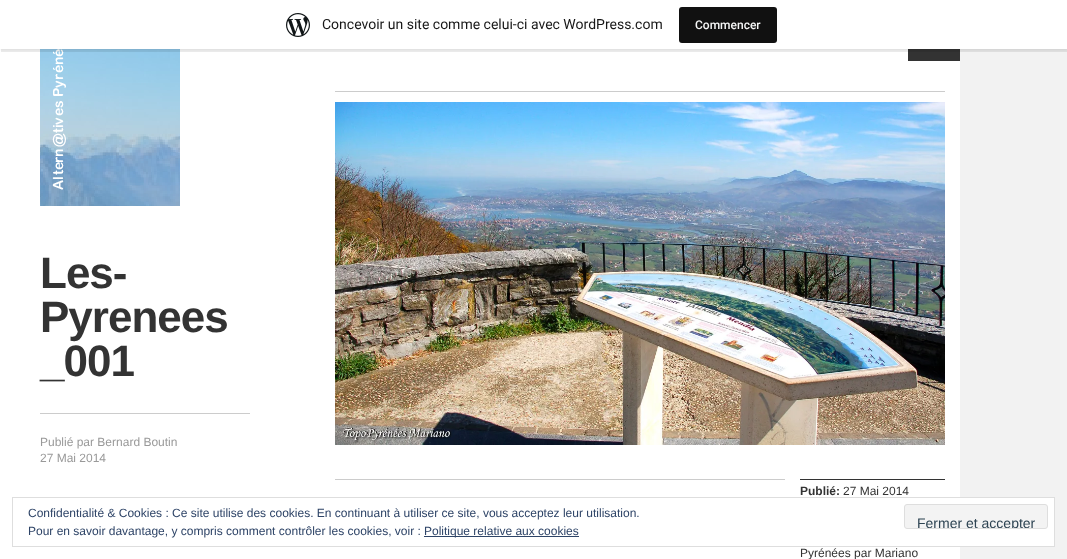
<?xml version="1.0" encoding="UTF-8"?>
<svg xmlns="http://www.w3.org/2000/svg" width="1067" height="559">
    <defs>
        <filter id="blur1" x="-50%" y="-200%" width="200%" height="500%"><feGaussianBlur stdDeviation="1"/></filter>
        <clipPath id="clip1"><rect x="905" y="505" width="142" height="23" rx="2"/></clipPath>
    </defs>
    <rect width="100%" height="100%" fill="#F2F2F2"/>
    <rect x="0" y="49" width="960" height="510" fill="#FFFFFF"/>
    <image x="40" y="49" width="140" height="157" href="img_02.png"/>
    <rect x="908" y="49" width="52" height="12" fill="#333333"/>
    <rect x="0" y="1" width="1067" height="49" fill="#000000" fill-opacity="0.05" filter="url(#blur1)"/>
    <path d="M 1 49 V 52 H 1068 V 3 H 1067 V 49 Z" fill="#000000" fill-opacity="0.08"/>
    <rect x="0" y="0" width="1067" height="49" fill="#FFFFFF"/>
    <image x="286" y="13" width="24" height="24" href="img_01.png"/>
    <text x="322" y="29" font-family="Roboto" font-size="14" fill="#171717">Concevoir un site comme celui-ci avec WordPress.com</text>
    <rect x="679" y="7" width="98" height="36" rx="3" fill="#111111"/>
    <text x="695" y="29" font-family="Roboto" font-size="12" font-weight="500" fill="#F6F7F7">Commencer</text>
    <rect x="40" y="413" width="210" height="1" fill="#CCCCCC"/>
    <text font-family="Liberation Sans" font-size="44" font-weight="700" letter-spacing="-1" fill="#333333">
        <tspan x="40" y="288">Les-</tspan>
        <tspan x="40" y="332">Pyrenees</tspan>
        <tspan x="40" y="376">_001</tspan>
    </text>
    <text font-family="Liberation Sans" font-size="12" fill="#999999">
        <tspan x="40" y="446">Publié par Bernard Boutin</tspan>
        <tspan x="40" y="462">27 Mai 2014</tspan>
    </text>
    <rect x="335" y="91" width="610" height="1" fill="#CCCCCC"/>
    <image x="335" y="102" width="610" height="343" href="img_03.png"/>
    <rect x="335" y="479" width="450" height="1" fill="#CCCCCC"/>
    <rect x="800" y="479" width="145" height="1" fill="#333333"/>
    <text x="800" y="495" font-family="Liberation Sans" font-size="12" font-weight="700" fill="#333333">Publié:</text>
    <text x="843" y="495" font-family="Liberation Sans" font-size="12" fill="#333333">27 Mai 2014</text>
    <text x="800" y="557" font-family="Liberation Sans" font-size="12" fill="#333333">Pyrénées par Mariano</text>
    <rect x="960" y="498" width="94" height="48" fill="#FFFFFF"/>
    <rect x="12.5" y="497.5" width="1042" height="49" fill="none" stroke="#DEDEDE"/>
    <text x="28" y="517" font-family="Liberation Sans" font-size="12" fill="#2E4467">Confidentialité &amp; Cookies : Ce site utilise des cookies. En continuant à utiliser ce site, vous acceptez leur utilisation.</text>
    <rect x="904.5" y="504.5" width="143" height="24" rx="2.5" fill="#F3F3F3" stroke="#DEDEDE"/>
    <g clip-path="url(#clip1)">
        <text x="917" y="528" font-family="Liberation Sans" font-size="14" fill="#2E4453">Fermer et accepter</text>
    </g>
    <text x="28" y="535" font-family="Liberation Sans" font-size="12" fill="#2E4467">Pour en savoir davantage, y compris comment contrôler les cookies, voir :</text>
    <rect x="424" y="536" width="155" height="1" fill="#2E4467"/>
    <text x="424" y="535" font-family="Liberation Sans" font-size="12" fill="#2E4467">Politique relative aux cookies</text>
</svg>
